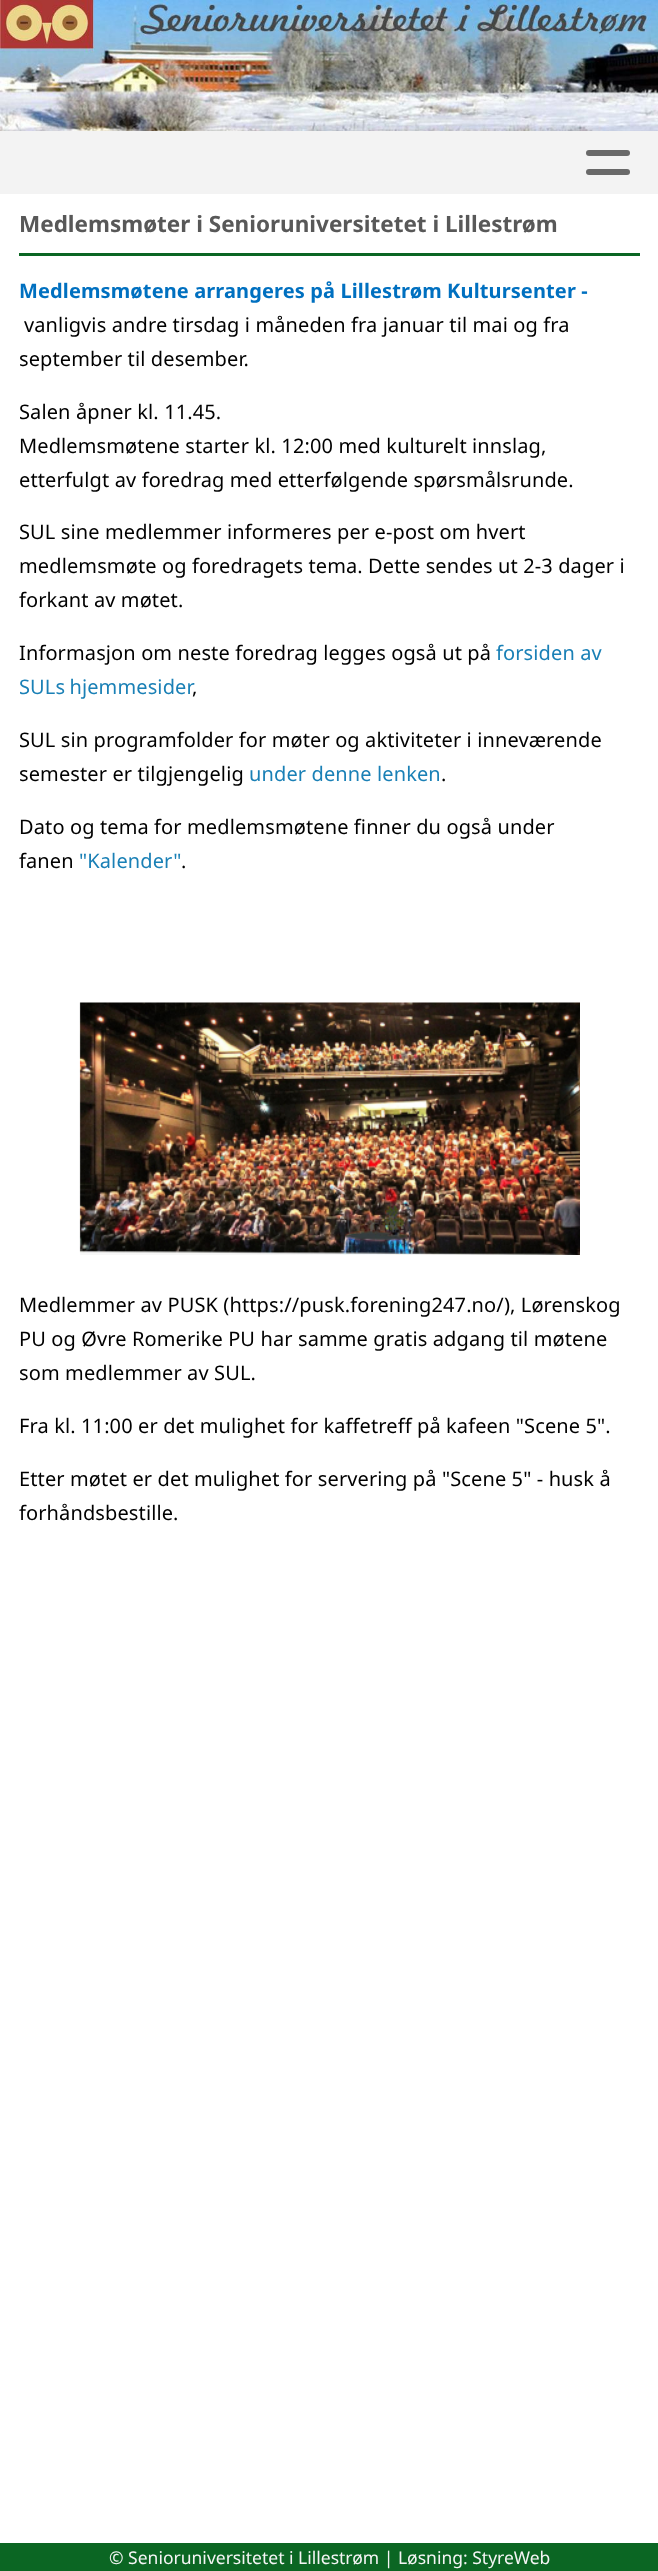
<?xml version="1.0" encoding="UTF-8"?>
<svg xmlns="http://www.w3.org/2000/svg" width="658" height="2571">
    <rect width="100%" height="100%" fill="#FFFFFF"/>
    <image x="0" y="0" width="658" height="131" href="img_01.png"/>
    <rect x="0" y="131" width="658" height="63" fill="#F3F3F3"/>
    <rect x="586" y="150" width="44" height="6" rx="3" fill="#696969"/>
    <rect x="586" y="169" width="44" height="6" rx="3" fill="#696969"/>
    <rect x="19" y="253" width="621" height="3" fill="#0B6623"/>
    <text x="19" y="232" font-family="Noto Sans" font-size="22.5" font-weight="700" fill="#585858">Medlemsmøter i Senioruniversitetet i Lillestrøm</text>
    <text x="19" y="298" font-family="Noto Sans" font-size="20" font-weight="700" letter-spacing="0.12" fill="#0070C0">Medlemsmøtene arrangeres på Lillestrøm Kultursenter -</text>
    <text x="24" y="332" font-family="Noto Sans" font-size="20" letter-spacing="0.12" fill="#000000">vanligvis andre tirsdag i måneden fra januar til mai og fra</text>
    <text x="19" y="366" font-family="Noto Sans" font-size="20" letter-spacing="0.12" fill="#000000">september til desember.</text>
    <text font-family="Noto Sans" font-size="20" letter-spacing="0.12" fill="#000000">
        <tspan x="19" y="419">Salen åpner kl. 11.45.</tspan>
        <tspan x="19" y="453">Medlemsmøtene starter kl. 12:00 med kulturelt innslag,</tspan>
        <tspan x="19" y="487">etterfulgt av foredrag med etterfølgende spørsmålsrunde.</tspan>
    </text>
    <text font-family="Noto Sans" font-size="20" letter-spacing="0.12" fill="#000000">
        <tspan x="19" y="539">SUL sine medlemmer informeres per e-post om hvert</tspan>
        <tspan x="19" y="573">medlemsmøte og foredragets tema. Dette sendes ut 2-3 dager i</tspan>
        <tspan x="19" y="607">forkant av møtet.</tspan>
    </text>
    <text x="19" y="660" font-family="Noto Sans" font-size="20" letter-spacing="0.12" fill="#000000">Informasjon om neste foredrag legges også ut på</text>
    <text x="496" y="660" font-family="Noto Sans" font-size="20" letter-spacing="0.12" fill="#1A80B6">forsiden av</text>
    <text x="19" y="694" word-spacing="-1" font-family="Noto Sans" font-size="20" letter-spacing="0.12" fill="#1A80B6">SULs hjemmesider</text>
    <text x="192" y="694" font-family="Noto Sans" font-size="20" letter-spacing="0.12" fill="#000000">,</text>
    <text font-family="Noto Sans" font-size="20" letter-spacing="0.12" fill="#000000">
        <tspan x="19" y="747">SUL sin programfolder for møter og aktiviteter i inneværende</tspan>
        <tspan x="19" y="781">semester er tilgjengelig</tspan>
    </text>
    <text x="249" y="781" font-family="Noto Sans" font-size="20" letter-spacing="0.12" fill="#1A80B6">under denne lenken</text>
    <text x="441" y="781" font-family="Noto Sans" font-size="20" letter-spacing="0.12" fill="#000000">.</text>
    <text font-family="Noto Sans" font-size="20" letter-spacing="0.12" fill="#000000">
        <tspan x="19" y="834">Dato og tema for medlemsmøtene finner du også under</tspan>
        <tspan x="19" y="868">fanen</tspan>
    </text>
    <text x="79" y="868" font-family="Noto Sans" font-size="20" letter-spacing="0.12" fill="#1A80B6">"Kalender"</text>
    <text x="181" y="868" font-family="Noto Sans" font-size="20" letter-spacing="0.12" fill="#000000">.</text>
    <image x="79" y="1002" width="501" height="253" href="img_02.png"/>
    <text font-family="Noto Sans" font-size="20" letter-spacing="0.12" fill="#000000">
        <tspan x="19" y="1312">Medlemmer av PUSK (https://pusk.forening247.no/), Lørenskog</tspan>
        <tspan x="19" y="1346">PU og Øvre Romerike PU har samme gratis adgang til møtene</tspan>
        <tspan x="19" y="1380">som medlemmer av SUL.</tspan>
    </text>
    <text x="19" y="1433" font-family="Noto Sans" font-size="20" letter-spacing="0.12" fill="#000000">Fra kl. 11:00 er det mulighet for kaffetreff på kafeen "Scene 5".</text>
    <text font-family="Noto Sans" font-size="20" letter-spacing="0.12" fill="#000000">
        <tspan x="19" y="1486">Etter møtet er det mulighet for servering på "Scene 5" - husk å</tspan>
        <tspan x="19" y="1520">forhåndsbestille.</tspan>
    </text>
    <rect x="0" y="2543" width="658" height="28" fill="#0B6623"/>
    <text x="109" y="2564" font-family="Noto Sans" font-size="17.5" fill="#F5F5F5">© Senioruniversitetet i Lillestrøm | Løsning: StyreWeb</text>
</svg>
